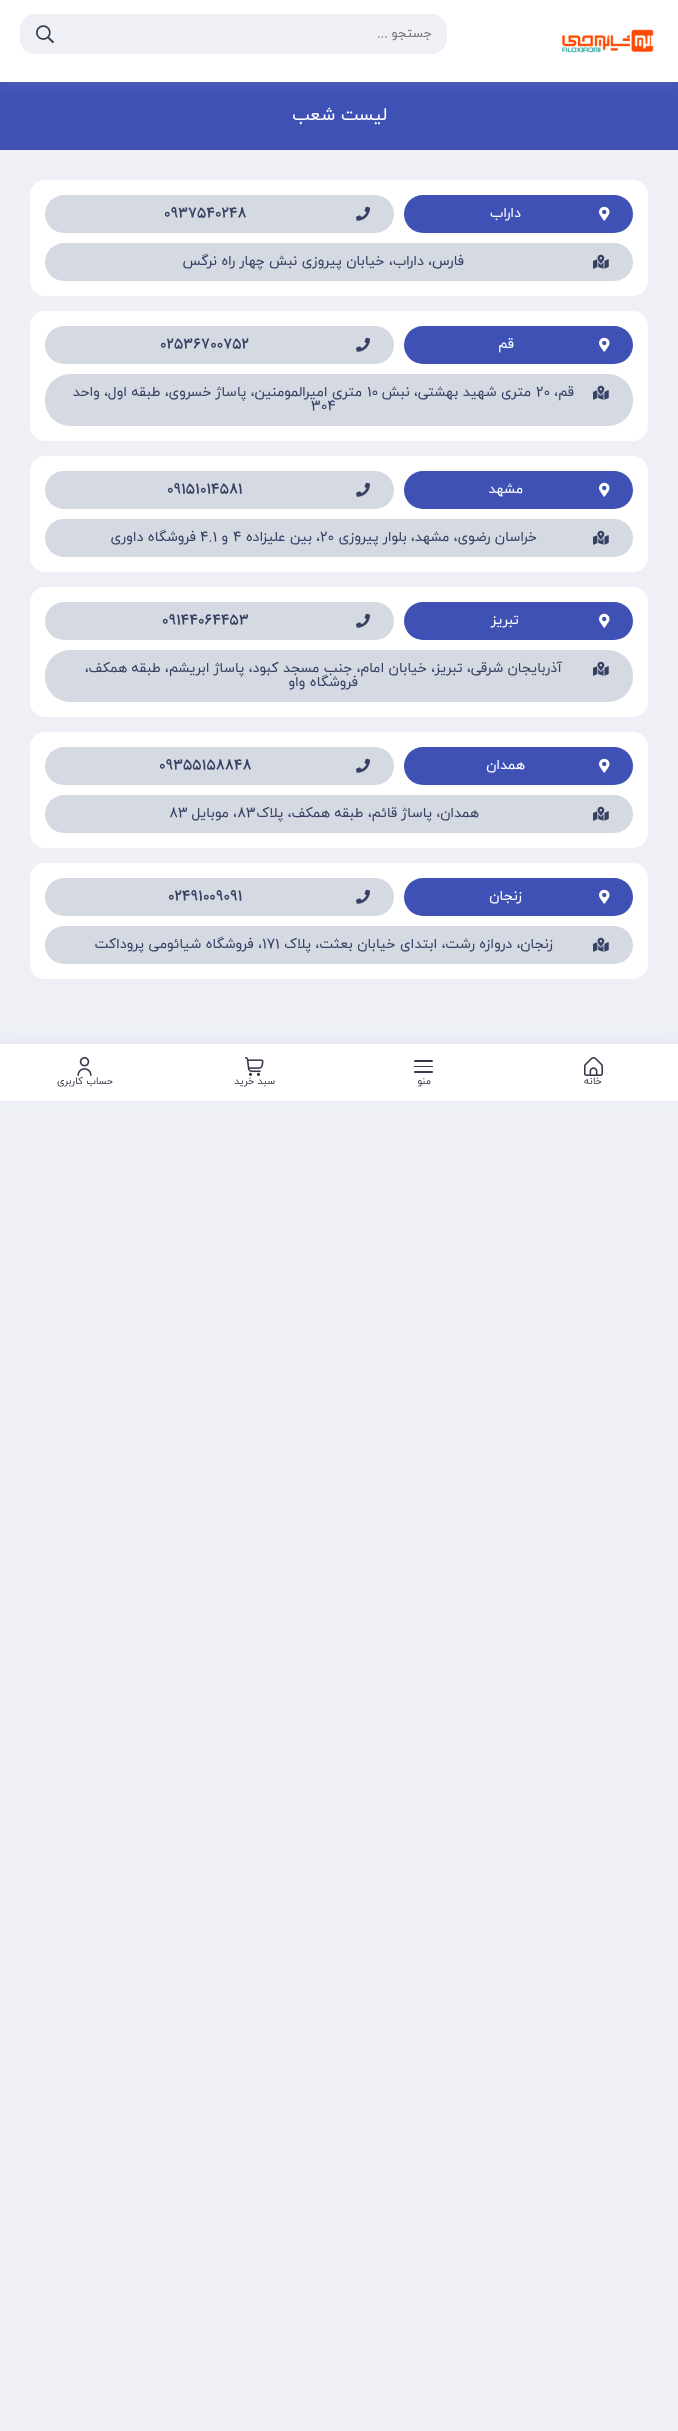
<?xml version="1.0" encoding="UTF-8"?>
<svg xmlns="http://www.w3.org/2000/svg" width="678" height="2431">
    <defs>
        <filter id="blur1" x="-50%" y="-200%" width="200%" height="500%"><feGaussianBlur stdDeviation="7.5"/></filter>
    </defs>
    <rect width="100%" height="100%" fill="#EEF0F6"/>
    <rect x="0" y="82" width="678" height="68" fill="#3F51B5"/>
    <rect x="0" y="5" width="678" height="82" fill="#AAB3D9" fill-opacity="0.15" filter="url(#blur1)"/>
    <rect x="0" y="0" width="678" height="82" fill="#FFFFFF"/>
    <image x="562" y="29" width="92" height="24" href="img_01.png"/>
    <rect x="20" y="14" width="427" height="40" rx="15" fill="#EEF0F6"/>
    <text x="432" y="37" font-family="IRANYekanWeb" font-size="13" direction="rtl" fill="#757575">جستجو</text>
    <text x="388" y="37" font-family="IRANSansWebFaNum" font-size="13" direction="rtl" fill="#757575">...</text>
    <rect x="20" y="14" width="50" height="40" rx="15" fill="#EEF0F6"/>
    <image x="36" y="25" width="18" height="19" href="img_02.png"/>
    <text x="387" y="120" font-family="IRANYekanWeb" font-size="18" direction="rtl" fill="#FFFFFF">لیست شعب</text>
    <rect x="30" y="180" width="618" height="116" rx="15" fill="#FFFFFF"/>
    <rect x="404" y="195" width="229" height="38" rx="19" fill="#3F51B5"/>
    <image x="599" y="206" width="11" height="15" href="img_03.png"/>
    <text x="521" y="217" font-family="IRANYekanWeb" font-size="14" direction="rtl" fill="#FFFFFF">داراب</text>
    <rect x="45" y="195" width="349" height="38" rx="19" fill="#D5D9E2"/>
    <image x="356" y="206" width="14" height="15" href="img_04.png"/>
    <text x="164" y="217" font-family="IRANSansWebFaNum" font-size="14" font-weight="500" fill="#364163">0937540248</text>
    <rect x="45" y="243" width="588" height="38" rx="19" fill="#D5D9E2"/>
    <image x="593" y="254" width="16" height="15" href="img_05.png"/>
    <text x="464" y="265" font-family="IRANYekanWeb" font-size="14" direction="rtl" fill="#364163">فارس، داراب، خیابان پیروزی نبش چهار راه نرگس</text>
    <rect x="30" y="311" width="618" height="130" rx="15" fill="#FFFFFF"/>
    <rect x="404" y="326" width="229" height="38" rx="19" fill="#3F51B5"/>
    <image x="599" y="337" width="11" height="15" href="img_03.png"/>
    <text x="514" y="348" font-family="IRANYekanWeb" font-size="14" direction="rtl" fill="#FFFFFF">قم</text>
    <rect x="45" y="326" width="349" height="38" rx="19" fill="#D5D9E2"/>
    <image x="356" y="337" width="14" height="15" href="img_04.png"/>
    <text x="160" y="348" font-family="IRANSansWebFaNum" font-size="14" font-weight="500" fill="#364163">02536700752</text>
    <rect x="45" y="374" width="588" height="52" rx="25" fill="#D5D9E2"/>
    <image x="593" y="385" width="16" height="15" href="img_05.png"/>
    <text x="574" y="396" font-family="IRANYekanWeb" font-size="14" direction="rtl" fill="#364163">قم،</text>
    <text x="536" y="396" font-family="IRANSansWebFaNum" font-size="14" fill="#364163">20</text>
    <text x="531" y="396" font-family="IRANYekanWeb" font-size="14" direction="rtl" fill="#364163">متری شهید بهشتی، نبش</text>
    <text x="367" y="396" font-family="IRANSansWebFaNum" font-size="14" fill="#364163">10</text>
    <text x="362" y="396" font-family="IRANYekanWeb" font-size="14" direction="rtl" fill="#364163">متری امیرالمومنین، پاساژ خسروی، طبقه اول، واحد</text>
    <text x="311" y="410" font-family="IRANSansWebFaNum" font-size="14" fill="#364163">304</text>
    <rect x="30" y="456" width="618" height="116" rx="15" fill="#FFFFFF"/>
    <rect x="404" y="471" width="229" height="38" rx="19" fill="#3F51B5"/>
    <image x="599" y="482" width="11" height="15" href="img_03.png"/>
    <text x="523" y="493" font-family="IRANYekanWeb" font-size="14" direction="rtl" fill="#FFFFFF">مشهد</text>
    <rect x="45" y="471" width="349" height="38" rx="19" fill="#D5D9E2"/>
    <image x="356" y="482" width="14" height="15" href="img_04.png"/>
    <text x="167" y="493" font-family="IRANSansWebFaNum" font-size="14" font-weight="500" fill="#364163">09151014581</text>
    <rect x="45" y="519" width="588" height="38" rx="19" fill="#D5D9E2"/>
    <image x="593" y="530" width="16" height="15" href="img_05.png"/>
    <text x="537" y="541" font-family="IRANYekanWeb" font-size="14" direction="rtl" fill="#364163">خراسان رضوی، مشهد، بلوار پیروزی</text>
    <text x="320" y="541" font-family="IRANSansWebFaNum" font-size="14" fill="#364163">20</text>
    <text x="320" y="541" font-family="IRANYekanWeb" font-size="14" direction="rtl" fill="#364163">، بین علیزاده</text>
    <text x="233" y="541" font-family="IRANSansWebFaNum" font-size="14" fill="#364163">4</text>
    <text x="228" y="541" font-family="IRANYekanWeb" font-size="14" direction="rtl" fill="#364163">و</text>
    <text x="200" y="541" font-family="IRANSansWebFaNum" font-size="14" fill="#364163">4.1</text>
    <text x="196" y="541" font-family="IRANYekanWeb" font-size="14" direction="rtl" fill="#364163">فروشگاه داوری</text>
    <rect x="30" y="587" width="618" height="130" rx="15" fill="#FFFFFF"/>
    <rect x="404" y="602" width="229" height="38" rx="19" fill="#3F51B5"/>
    <image x="599" y="613" width="11" height="15" href="img_03.png"/>
    <text x="519" y="624" font-family="IRANYekanWeb" font-size="14" direction="rtl" fill="#FFFFFF">تبریز</text>
    <rect x="45" y="602" width="349" height="38" rx="19" fill="#D5D9E2"/>
    <image x="356" y="613" width="14" height="15" href="img_04.png"/>
    <text x="162" y="624" font-family="IRANSansWebFaNum" font-size="14" font-weight="500" fill="#364163">09144064453</text>
    <rect x="45" y="650" width="588" height="52" rx="25" fill="#D5D9E2"/>
    <image x="593" y="661" width="16" height="15" href="img_05.png"/>
    <text x="562" y="672" font-family="IRANYekanWeb" font-size="14" direction="rtl" fill="#364163">آذربایجان شرقی، تبریز، خیابان امام، جنب مسجد کبود، پاساژ ابریشم، طبقه همکف،</text>
    <text x="358" y="686" font-family="IRANYekanWeb" font-size="14" direction="rtl" fill="#364163">فروشگاه واو</text>
    <rect x="30" y="732" width="618" height="116" rx="15" fill="#FFFFFF"/>
    <rect x="404" y="747" width="229" height="38" rx="19" fill="#3F51B5"/>
    <image x="599" y="758" width="11" height="15" href="img_03.png"/>
    <text x="525" y="769" font-family="IRANYekanWeb" font-size="14" direction="rtl" fill="#FFFFFF">همدان</text>
    <rect x="45" y="747" width="349" height="38" rx="19" fill="#D5D9E2"/>
    <image x="356" y="758" width="14" height="15" href="img_04.png"/>
    <text x="159" y="769" font-family="IRANSansWebFaNum" font-size="14" font-weight="500" fill="#364163">09355158848</text>
    <rect x="45" y="795" width="588" height="38" rx="19" fill="#D5D9E2"/>
    <image x="593" y="806" width="16" height="15" href="img_05.png"/>
    <text x="479" y="817" font-family="IRANYekanWeb" font-size="14" direction="rtl" fill="#364163">همدان، پاساژ قائم، طبقه همکف، پلاک</text>
    <text x="237" y="817" font-family="IRANSansWebFaNum" font-size="14" fill="#364163">83</text>
    <text x="237" y="817" font-family="IRANYekanWeb" font-size="14" direction="rtl" fill="#364163">، موبایل</text>
    <text x="169" y="817" font-family="IRANSansWebFaNum" font-size="14" fill="#364163">83</text>
    <rect x="30" y="863" width="618" height="116" rx="15" fill="#FFFFFF"/>
    <rect x="404" y="878" width="229" height="38" rx="19" fill="#3F51B5"/>
    <image x="599" y="889" width="11" height="15" href="img_03.png"/>
    <text x="522" y="900" font-family="IRANYekanWeb" font-size="14" direction="rtl" fill="#FFFFFF">زنجان</text>
    <rect x="45" y="878" width="349" height="38" rx="19" fill="#D5D9E2"/>
    <image x="356" y="889" width="14" height="15" href="img_04.png"/>
    <text x="168" y="900" font-family="IRANSansWebFaNum" font-size="14" font-weight="500" fill="#364163">02491009091</text>
    <rect x="45" y="926" width="588" height="38" rx="19" fill="#D5D9E2"/>
    <image x="593" y="937" width="16" height="15" href="img_05.png"/>
    <text x="553" y="948" font-family="IRANYekanWeb" font-size="14" direction="rtl" fill="#364163">زنجان، دروازه رشت، ابتدای خیابان بعثت، پلاک</text>
    <text x="262" y="948" font-family="IRANSansWebFaNum" font-size="14" fill="#364163">171</text>
    <text x="262" y="948" font-family="IRANYekanWeb" font-size="14" direction="rtl" fill="#364163">، فروشگاه شیائومی پروداکت</text>
    <rect x="0" y="1039" width="678" height="57" fill="#AAB3D9" fill-opacity="0.15" filter="url(#blur1)"/>
    <rect x="0" y="1044" width="678" height="57" fill="#FFFFFF"/>
    <image x="584" y="1057" width="19" height="19" href="img_06.png"/>
    <text x="602" y="1084" font-family="IRANYekanWeb" font-size="10" direction="rtl" fill="#373A4A">خانه</text>
    <rect x="414" y="1066" width="19" height="1" rx="0.5" fill="#373A4A"/>
    <rect x="414" y="1060" width="19" height="2" rx="1" fill="#373A4A"/>
    <rect x="414" y="1071" width="19" height="2" rx="1" fill="#373A4A"/>
    <text x="431" y="1084" font-family="IRANYekanWeb" font-size="10" direction="rtl" fill="#373A4A">منو</text>
    <image x="245" y="1057" width="19" height="19" href="img_07.png"/>
    <text x="275" y="1084" font-family="IRANYekanWeb" font-size="10" direction="rtl" fill="#373A4A">سبد خرید</text>
    <image x="77" y="1057" width="15" height="19" href="img_08.png"/>
    <text x="113" y="1084" font-family="IRANYekanWeb" font-size="10" direction="rtl" fill="#373A4A">حساب کاربری</text>
</svg>
